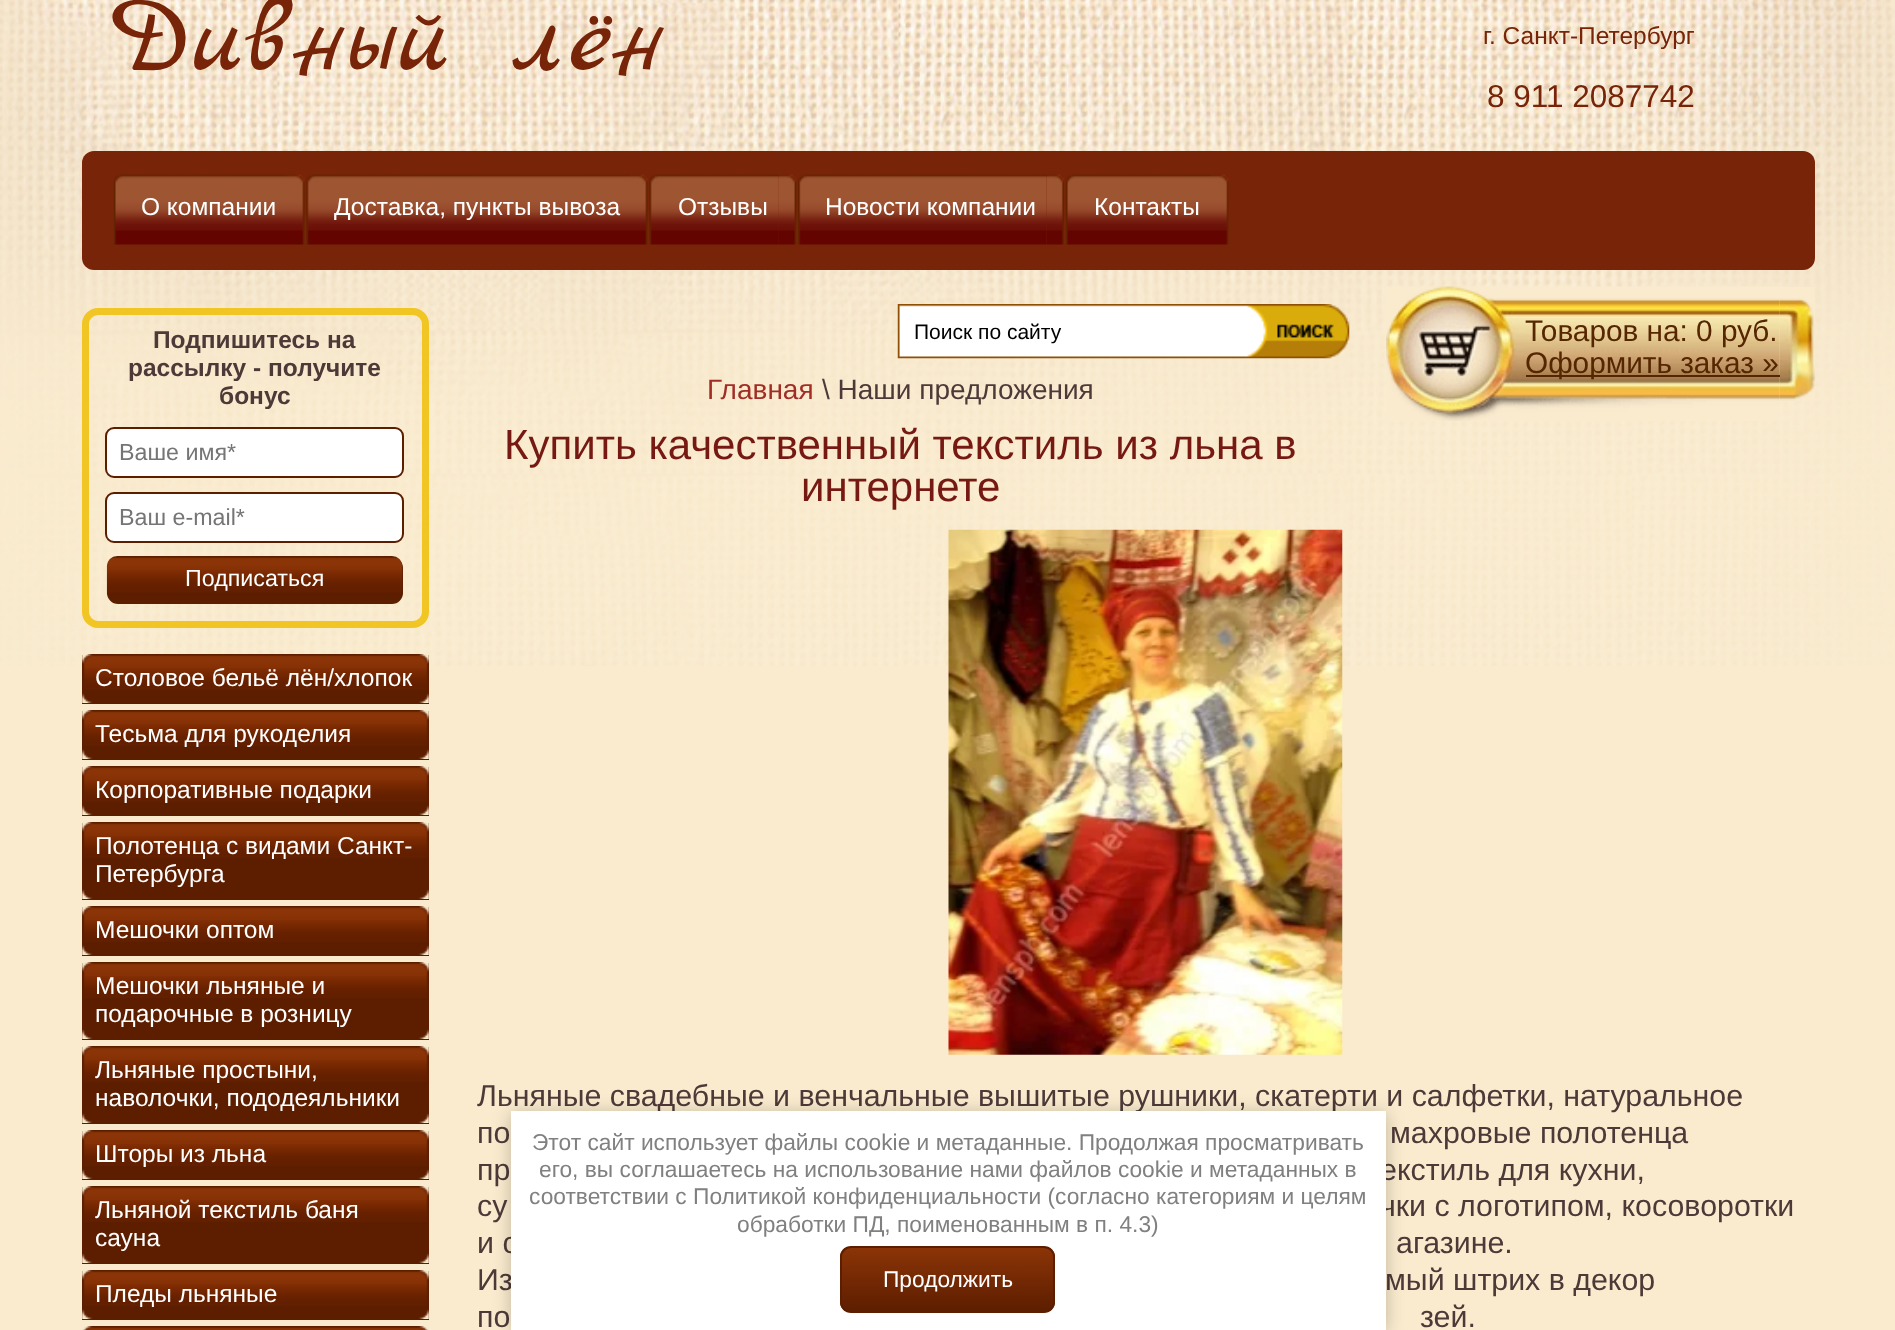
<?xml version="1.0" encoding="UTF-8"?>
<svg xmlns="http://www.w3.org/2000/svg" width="1895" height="1330">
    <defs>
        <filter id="blur1" x="-50%" y="-200%" width="200%" height="500%"><feGaussianBlur stdDeviation="9"/></filter>
        <clipPath id="clip1"><rect x="840" y="1246" width="215" height="67" rx="11"/></clipPath>
        <linearGradient id="g1" gradientUnits="userSpaceOnUse" x1="948" y1="1248" x2="948" y2="1311"><stop offset="0" stop-color="#8B3407"/><stop offset="1" stop-color="#5D1E00"/></linearGradient>
    </defs>
    <rect width="100%" height="100%" fill="#FAEBCE"/>
    <image x="0" y="0" width="1895" height="666" href="img_01.png"/>
    <text x="108" y="70" font-family="Marck Script" font-size="110.25" fill="#782408">Дивный лён</text>
    <text x="1483" y="44" font-family="Liberation Sans" font-size="24.5" fill="#782408">г. Санкт-Петербург</text>
    <text x="1487" y="107" font-family="Liberation Sans" font-size="31.5" fill="#782408">8 911 2087742</text>
    <rect x="82" y="151" width="1733" height="119" rx="12" fill="#782408"/>
    <image x="287" y="174" width="18" height="71" href="img_02.png"/>
    <image x="113" y="174" width="174" height="71" href="img_03.png"/>
    <text x="141" y="215" font-family="Liberation Sans" font-size="24.5" fill="#FFFFFF">О компании</text>
    <image x="630" y="174" width="18" height="71" href="img_04.png"/>
    <image x="306" y="174" width="324" height="71" href="img_05.png"/>
    <text x="334" y="215" font-family="Liberation Sans" font-size="24.5" fill="#FFFFFF">Доставка, пункты вывоза</text>
    <image x="778" y="174" width="19" height="71" href="img_06.png"/>
    <image x="649" y="174" width="130" height="71" href="img_07.png"/>
    <text x="678" y="215" font-family="Liberation Sans" font-size="24.5" fill="#FFFFFF">Отзывы</text>
    <image x="1046" y="174" width="18" height="71" href="img_08.png"/>
    <image x="798" y="174" width="249" height="71" href="img_09.png"/>
    <text x="825" y="215" font-family="Liberation Sans" font-size="24.5" fill="#FFFFFF">Новости компании</text>
    <image x="1211" y="174" width="18" height="71" href="img_02.png"/>
    <image x="1065" y="174" width="146" height="71" href="img_10.png"/>
    <text x="1094" y="215" font-family="Liberation Sans" font-size="24.5" fill="#FFFFFF">Контакты</text>
    <image x="897" y="304" width="453" height="55" href="img_11.png"/>
    <text x="914" y="339" font-family="Liberation Sans" font-size="21" fill="#000000">Поиск по сайту</text>
    <image x="1779" y="287" width="36" height="114" href="img_12.png"/>
    <image x="1386" y="286" width="394" height="135" href="img_13.png"/>
    <text x="1525" y="341" font-family="Liberation Sans" font-size="29.75" fill="#552600">Товаров на: 0 руб.</text>
    <rect x="1526" y="375" width="254" height="2" fill="#552600"/>
    <text x="1525" y="373" font-family="Liberation Sans" font-size="29.75" fill="#552600">Оформить заказ »</text>
    <rect x="85.5" y="311.5" width="340" height="313" rx="12.5" fill="none" stroke="#F1C624" stroke-width="7"/>
    <text x="153" y="348" font-family="Liberation Sans" font-size="24.5" font-weight="700" fill="#4D3938">Подпишитесь на</text>
    <text x="128" y="376" font-family="Liberation Sans" font-size="24.5" font-weight="700" fill="#4D3938">рассылку - получите</text>
    <text x="219" y="404" font-family="Liberation Sans" font-size="24.5" font-weight="700" fill="#4D3938">бонус</text>
    <rect x="106" y="428" width="297" height="49" rx="8" fill="#FFFFFF" stroke="#5D1E00" stroke-width="2"/>
    <text x="119" y="460" font-family="Liberation Sans" font-size="23.25" fill="#757575">Ваше имя*</text>
    <rect x="106" y="493" width="297" height="49" rx="8" fill="#FFFFFF" stroke="#5D1E00" stroke-width="2"/>
    <text x="119" y="525" font-family="Liberation Sans" font-size="23.25" fill="#757575">Ваш e-mail*</text>
    <rect x="107" y="557" width="296" height="47" rx="11" fill="#5D1E00"/>
    <image x="106" y="556" width="297" height="39" href="img_14.png"/>
    <text x="185" y="586" font-family="Liberation Sans" font-size="23.25" fill="#FFFFFF">Подписаться</text>
    <rect x="82" y="655" width="347" height="49" fill="#5D1E00"/>
    <image x="82" y="654" width="347" height="36" href="img_15.png"/>
    <image x="82" y="693" width="347" height="10" href="img_16.png"/>
    <text x="95" y="686" font-family="Liberation Sans" font-size="24.5" fill="#FFFFFF">Столовое бельё лён/хлопок</text>
    <rect x="82" y="711" width="347" height="49" fill="#5D1E00"/>
    <image x="82" y="710" width="347" height="36" href="img_17.png"/>
    <image x="82" y="749" width="347" height="10" href="img_16.png"/>
    <text x="95" y="742" font-family="Liberation Sans" font-size="24.5" fill="#FFFFFF">Тесьма для рукоделия</text>
    <rect x="82" y="767" width="347" height="49" fill="#5D1E00"/>
    <image x="82" y="766" width="347" height="36" href="img_17.png"/>
    <image x="82" y="805" width="347" height="10" href="img_16.png"/>
    <text x="95" y="798" font-family="Liberation Sans" font-size="24.5" fill="#FFFFFF">Корпоративные подарки</text>
    <rect x="82" y="823" width="347" height="77" fill="#5D1E00"/>
    <image x="82" y="822" width="347" height="36" href="img_17.png"/>
    <image x="82" y="889" width="347" height="10" href="img_16.png"/>
    <text font-family="Liberation Sans" font-size="24.5" fill="#FFFFFF">
        <tspan x="95" y="854">Полотенца с видами Санкт-</tspan>
        <tspan x="95" y="882">Петербурга</tspan>
    </text>
    <rect x="82" y="907" width="347" height="49" fill="#5D1E00"/>
    <image x="82" y="906" width="347" height="36" href="img_17.png"/>
    <image x="82" y="945" width="347" height="10" href="img_16.png"/>
    <text x="95" y="938" font-family="Liberation Sans" font-size="24.5" fill="#FFFFFF">Мешочки оптом</text>
    <rect x="82" y="963" width="347" height="77" fill="#5D1E00"/>
    <image x="82" y="962" width="347" height="36" href="img_17.png"/>
    <image x="82" y="1029" width="347" height="10" href="img_16.png"/>
    <text font-family="Liberation Sans" font-size="24.5" fill="#FFFFFF">
        <tspan x="95" y="994">Мешочки льняные и</tspan>
        <tspan x="95" y="1022">подарочные в розницу</tspan>
    </text>
    <rect x="82" y="1047" width="347" height="77" fill="#5D1E00"/>
    <image x="82" y="1046" width="347" height="36" href="img_17.png"/>
    <image x="82" y="1113" width="347" height="10" href="img_16.png"/>
    <text font-family="Liberation Sans" font-size="24.5" fill="#FFFFFF">
        <tspan x="95" y="1078">Льняные простыни,</tspan>
        <tspan x="95" y="1106">наволочки, пододеяльники</tspan>
    </text>
    <rect x="82" y="1131" width="347" height="49" fill="#5D1E00"/>
    <image x="82" y="1130" width="347" height="36" href="img_17.png"/>
    <image x="82" y="1169" width="347" height="10" href="img_16.png"/>
    <text x="95" y="1162" font-family="Liberation Sans" font-size="24.5" fill="#FFFFFF">Шторы из льна</text>
    <rect x="82" y="1187" width="347" height="77" fill="#5D1E00"/>
    <image x="82" y="1186" width="347" height="36" href="img_17.png"/>
    <image x="82" y="1253" width="347" height="10" href="img_16.png"/>
    <text font-family="Liberation Sans" font-size="24.5" fill="#FFFFFF">
        <tspan x="95" y="1218">Льняной текстиль баня</tspan>
        <tspan x="95" y="1246">сауна</tspan>
    </text>
    <rect x="82" y="1271" width="347" height="49" fill="#5D1E00"/>
    <image x="82" y="1270" width="347" height="36" href="img_17.png"/>
    <image x="82" y="1309" width="347" height="10" href="img_16.png"/>
    <text x="95" y="1302" font-family="Liberation Sans" font-size="24.5" fill="#FFFFFF">Пледы льняные</text>
    <image x="82" y="1326" width="347" height="4" href="img_18.png"/>
    <text x="707" y="399" font-family="Liberation Sans" font-size="28" fill="#A12D26">Главная</text>
    <text x="822" y="399" font-family="Liberation Sans" font-size="28" fill="#4D3938">\ Наши предложения</text>
    <text x="504" y="459" font-family="Liberation Sans" font-size="42" fill="#771913">Купить качественный текстиль из льна в</text>
    <text x="801" y="501" font-family="Liberation Sans" font-size="42" fill="#771913">интернете</text>
    <image x="948" y="529" width="395" height="526" href="img_19.png"/>
    <text font-family="Liberation Sans" font-size="30.35" fill="#4D3938">
        <tspan x="477" y="1106">Льняные свадебные и венчальные вышитые рушники, скатерти и салфетки, натуральное</tspan>
        <tspan x="477" y="1143">по</tspan>
    </text>
    <text x="1390" y="1143" font-family="Liberation Sans" font-size="30.35" fill="#4D3938">махровые полотенца</text>
    <text x="477" y="1180" font-family="Liberation Sans" font-size="30.35" fill="#4D3938">пр</text>
    <text x="1380" y="1180" font-family="Liberation Sans" font-size="30.35" fill="#4D3938">екстиль для кухни,</text>
    <text x="477" y="1216" font-family="Liberation Sans" font-size="30.35" fill="#4D3938">су</text>
    <text x="1380" y="1216" font-family="Liberation Sans" font-size="30.35" fill="#4D3938">чки с логотипом, косоворотки</text>
    <text x="477" y="1253" font-family="Liberation Sans" font-size="30.35" fill="#4D3938">и с</text>
    <text x="1396" y="1253" font-family="Liberation Sans" font-size="30.35" fill="#4D3938">агазине.</text>
    <text x="477" y="1290" font-family="Liberation Sans" font-size="30.35" fill="#4D3938">Из</text>
    <text x="1385" y="1290" font-family="Liberation Sans" font-size="30.35" fill="#4D3938">мый штрих в декор</text>
    <text x="477" y="1327" font-family="Liberation Sans" font-size="30.35" fill="#4D3938">по</text>
    <text x="1420" y="1327" font-family="Liberation Sans" font-size="30.35" fill="#4D3938">зей.</text>
    <rect x="511" y="1113" width="875" height="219" fill="#000000" fill-opacity="0.23" filter="url(#blur1)"/>
    <rect x="511" y="1111" width="875" height="219" fill="#FFFFFF"/>
    <text x="532" y="1150" font-family="Liberation Sans" font-size="22.75" fill="#808080">Этот сайт использует файлы cookie и метаданные. Продолжая просматривать</text>
    <text x="539" y="1177" font-family="Liberation Sans" font-size="22.75" fill="#808080">его, вы соглашаетесь на использование нами файлов cookie и метаданных в</text>
    <text x="529" y="1204" font-family="Liberation Sans" font-size="22.75" fill="#808080">соответствии с Политикой конфиденциальности (согласно категориям и целям</text>
    <text x="737" y="1232" font-family="Liberation Sans" font-size="22.75" fill="#808080">обработки ПД, поименованным в п. 4.3)</text>
    <g clip-path="url(#clip1)">
        <rect x="840" y="1248" width="215" height="63" fill="url(#g1)"/>
    </g>
    <rect x="841" y="1247" width="213" height="65" rx="10" fill="none" stroke="#5D1E00" stroke-width="2"/>
    <text x="883" y="1287" font-family="Liberation Sans" font-size="22.75" fill="#FFFFFF">Продолжить</text>
</svg>
